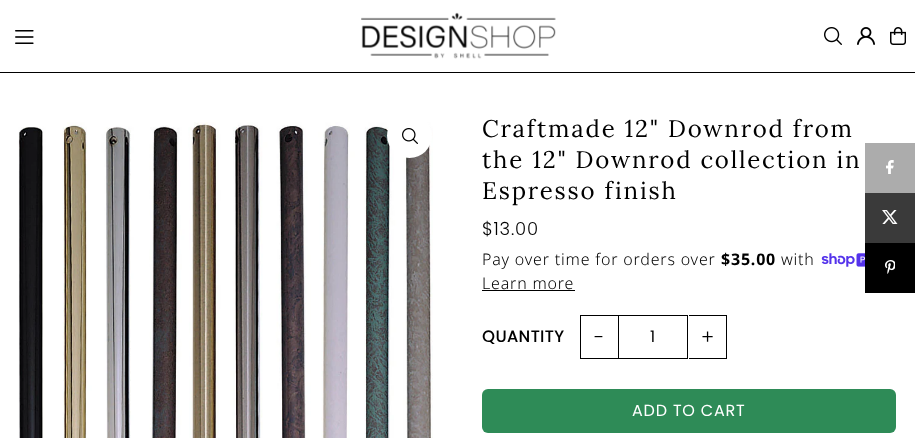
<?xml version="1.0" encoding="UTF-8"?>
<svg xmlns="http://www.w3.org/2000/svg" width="915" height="438">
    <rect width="100%" height="100%" fill="#FFFFFF"/>
    <rect x="0" y="72" width="915" height="1" fill="#000000"/>
    <image x="15" y="30" width="19" height="14" href="img_01.png"/>
    <image x="361" y="12" width="195" height="47" href="img_02.png"/>
    <image x="824" y="27" width="18" height="18" href="img_03.png"/>
    <image x="857" y="27" width="18" height="18" href="img_04.png"/>
    <image x="890" y="27" width="16" height="18" href="img_05.png"/>
    <image x="18" y="122" width="415" height="316" href="img_07.png"/>
    <circle cx="409.5" cy="135.5" r="22.5" fill="#FFFFFF"/>
    <image x="402" y="128" width="16" height="16" href="img_06.png"/>
    <text font-family="Lora" font-size="24" letter-spacing="1.8" fill="#000000">
        <tspan x="482" y="137">Craftmade 12" Downrod from</tspan>
        <tspan x="482" y="168">the 12" Downrod collection in</tspan>
        <tspan x="482" y="199">Espresso finish</tspan>
    </text>
    <text x="482" y="235" font-family="Poppins" font-size="18" font-weight="300" letter-spacing="0.8" fill="#000000">$13.00</text>
    <text x="482" y="265" font-family="Noto Sans" font-size="16" font-weight="300" letter-spacing="0.8" fill="#000000">Pay over time for orders over</text>
    <text x="721" y="265" font-family="Noto Sans" font-size="16" font-weight="700" letter-spacing="0.8" fill="#000000">$35.00</text>
    <text x="781" y="265" font-family="Noto Sans" font-size="16" font-weight="300" letter-spacing="0.8" fill="#000000">with</text>
    <image x="821" y="253" width="44" height="14" href="img_08.png"/>
    <text x="482" y="289" font-family="Noto Sans" font-size="16" font-weight="300" letter-spacing="0.8" fill="#000000">Learn more</text>
    <rect x="482" y="290" width="93" height="1" fill="#000000"/>
    <text x="482" y="342" font-family="Poppins" font-size="16" font-weight="700" letter-spacing="0.8" fill="#000000">QUANTITY</text>
    <rect x="580" y="315" width="38" height="1" fill="#000000"/>
    <rect x="580" y="358" width="38" height="1" fill="#000000"/>
    <rect x="580" y="315" width="1" height="44" fill="#000000"/>
    <text x="594" y="344" font-family="Poppins" font-size="20" font-weight="300" letter-spacing="1" fill="#000000">-</text>
    <rect x="618.5" y="315.5" width="69" height="43" fill="none" stroke="#000000"/>
    <text x="650" y="342" font-family="Poppins" font-size="16" letter-spacing="0.8" fill="#000000">1</text>
    <rect x="689" y="315" width="38" height="1" fill="#000000"/>
    <rect x="726" y="315" width="1" height="44" fill="#000000"/>
    <rect x="689" y="358" width="38" height="1" fill="#000000"/>
    <text x="701" y="344" font-family="Poppins" font-size="20" font-weight="300" letter-spacing="1" fill="#000000">+</text>
    <rect x="482" y="389" width="414" height="44" rx="6" fill="#2E8B57"/>
    <text x="632" y="416" font-family="Poppins" font-size="16" letter-spacing="0.8" fill="#FFFFFF">ADD TO CART</text>
    <rect x="865" y="143" width="50" height="50" fill="#ACACAC"/>
    <image x="886" y="160" width="8" height="14" href="img_09.png"/>
    <rect x="865" y="193" width="50" height="50" fill="#3A3A3A"/>
    <image x="882" y="210" width="16" height="14" href="img_10.png"/>
    <rect x="865" y="243" width="50" height="50" fill="#000000"/>
    <image x="885" y="260" width="10" height="14" href="img_11.png"/>
</svg>
